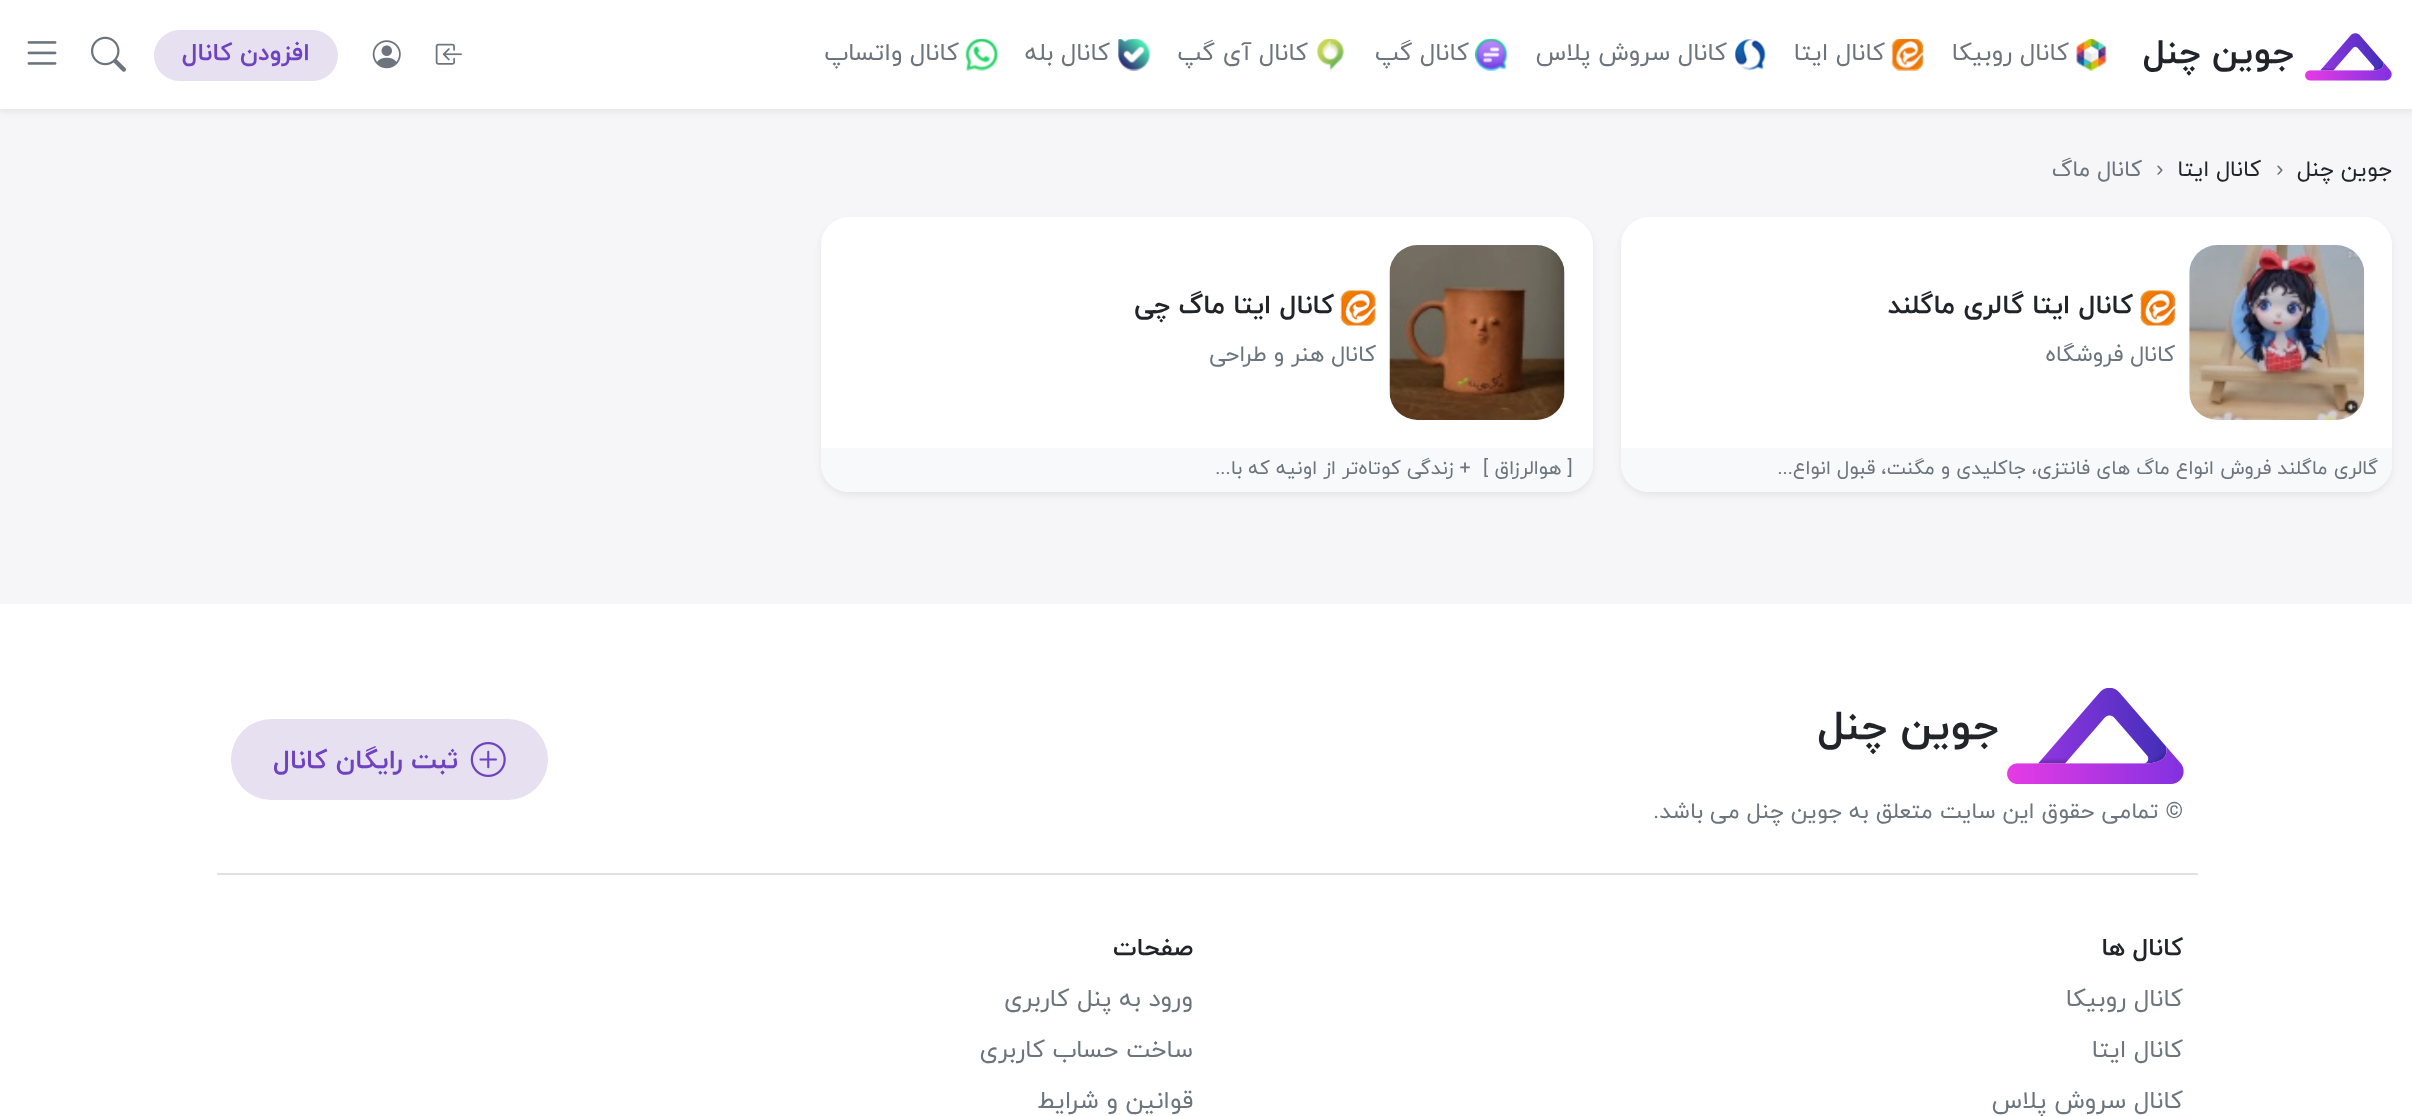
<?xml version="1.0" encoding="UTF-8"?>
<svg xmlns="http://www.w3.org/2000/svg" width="2412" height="1116">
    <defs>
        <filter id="blur1" x="-50%" y="-200%" width="200%" height="500%"><feGaussianBlur stdDeviation="3.5"/></filter>
    </defs>
    <rect width="100%" height="100%" fill="#F6F6F9"/>
    <rect x="0" y="4" width="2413" height="108" fill="#000000" fill-opacity="0.07" filter="url(#blur1)"/>
    <rect x="0" y="0" width="2412" height="109" fill="#FFFFFF"/>
    <image x="2305" y="33" width="87" height="48" href="img_01.png"/>
    <text x="2294" y="63" font-family="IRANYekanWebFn" font-size="35" font-weight="700" direction="rtl" fill="#212529">جوین چنل</text>
    <image x="2076" y="39" width="31" height="32" href="img_02.png"/>
    <text x="2069" y="60" font-family="IRANYekanWebFn" font-size="24.5" direction="rtl" fill="#6C757D">کانال روبیکا</text>
    <image x="1891" y="39" width="33" height="32" href="img_03.png"/>
    <text x="1885" y="60" font-family="IRANYekanWebFn" font-size="24.5" direction="rtl" fill="#6C757D">کانال ایتا</text>
    <image x="1734" y="39" width="32" height="32" href="img_04.png"/>
    <text x="1727" y="60" font-family="IRANYekanWebFn" font-size="24.5" direction="rtl" fill="#6C757D">کانال سروش پلاس</text>
    <image x="1475" y="39" width="33" height="32" href="img_05.png"/>
    <text x="1469" y="60" font-family="IRANYekanWebFn" font-size="24.5" direction="rtl" fill="#6C757D">کانال گپ</text>
    <image x="1317" y="39" width="28" height="32" href="img_06.png"/>
    <text x="1308" y="60" font-family="IRANYekanWebFn" font-size="24.5" direction="rtl" fill="#6C757D">کانال آی گپ</text>
    <image x="1118" y="39" width="33" height="32" href="img_07.png"/>
    <text x="1110" y="60" font-family="IRANYekanWebFn" font-size="24.5" direction="rtl" fill="#6C757D">کانال بله</text>
    <image x="965" y="39" width="34" height="32" href="img_08.png"/>
    <text x="959" y="60" font-family="IRANYekanWebFn" font-size="24.5" direction="rtl" fill="#6C757D">کانال واتساپ</text>
    <image x="435" y="43" width="27" height="22" href="img_09.png"/>
    <image x="372" y="40" width="29" height="29" href="img_10.png"/>
    <rect x="154" y="30" width="184" height="51" rx="25.5" fill="#E6E0F0"/>
    <text x="310" y="60" font-family="IRANYekanWebFn" font-size="24.5" font-weight="700" direction="rtl" fill="#6F42C1">افزودن کانال</text>
    <image x="91" y="36" width="35" height="36" href="img_11.png"/>
    <image x="27" y="41" width="30" height="24" href="img_12.png"/>
    <text x="2392" y="176" font-family="IRANYekanWebFn" font-size="22.4" direction="rtl" fill="#212529">جوین چنل</text>
    <text x="2276" y="176" font-family="Liberation Sans" font-size="22.4" fill="#6C757D">›</text>
    <text x="2261" y="176" font-family="IRANYekanWebFn" font-size="22.4" direction="rtl" fill="#212529">کانال ایتا</text>
    <text x="2156" y="176" font-family="Liberation Sans" font-size="22.4" fill="#6C757D">›</text>
    <text x="2142" y="176" font-family="IRANYekanWebFn" font-size="22.4" direction="rtl" fill="#6C757D">کانال ماگ‌</text>
    <rect x="1621" y="221" width="771" height="274" rx="28" fill="#000000" fill-opacity="0.07" filter="url(#blur1)"/>
    <rect x="1621" y="217" width="771" height="275" rx="28" fill="#FFFFFF"/>
    <image x="2189" y="245" width="176" height="175" href="img_13.png"/>
    <image x="2140" y="290" width="36" height="36" href="img_14.png"/>
    <text x="2133" y="313" font-family="IRANYekanWebFn" font-size="26.5" font-weight="700" direction="rtl" fill="#212529">کانال ایتا گالری ماگلند</text>
    <text x="2175" y="361" font-family="IRANYekanWebFn" font-size="22.4" direction="rtl" fill="#6C757D">کانال فروشگاه</text>
    <path d="M 1621 448 H 2392 V 464 C 2392 479.5 2379.5 492 2364 492 H 1649 C 1633.5 492 1621 479.5 1621 464 Z" fill="#F8F9FA"/>
    <text x="2378" y="474" font-family="IRANYekanWebFn" font-size="19.6" direction="rtl" fill="#6C757D">گالری ماگلند فروش انواع ماگ های فانتزی، جاکلیدی و مگنت، قبول انواع...</text>
    <rect x="821" y="221" width="772" height="274" rx="28" fill="#000000" fill-opacity="0.07" filter="url(#blur1)"/>
    <rect x="821" y="217" width="772" height="275" rx="28" fill="#FFFFFF"/>
    <image x="1389" y="245" width="176" height="175" href="img_15.png"/>
    <image x="1340" y="290" width="36" height="36" href="img_16.png"/>
    <text x="1334" y="313" font-family="IRANYekanWebFn" font-size="26.5" font-weight="700" direction="rtl" fill="#212529">کانال ایتا ماگ چی</text>
    <text x="1376" y="361" font-family="IRANYekanWebFn" font-size="22.4" direction="rtl" fill="#6C757D">کانال هنر و طراحی</text>
    <path d="M 821 448 H 1593 V 464 C 1593 479.5 1580.5 492 1565 492 H 849 C 833.5 492 821 479.5 821 464 Z" fill="#F8F9FA"/>
    <text x="1579" y="474" font-family="IRANYekanWebFn" font-size="19.6" direction="rtl" fill="#6C757D">‌ [‌ هوالرزاق ] ‌ + زندگی کوتاه‌تر از اونیه که با...</text>
    <rect x="0" y="604" width="2412" height="512" fill="#FFFFFF"/>
    <rect x="217" y="873" width="1981" height="2" fill="#DEE2E6"/>
    <image x="2007" y="688" width="177" height="96" href="img_17.png"/>
    <text x="1999" y="739" font-family="IRANYekanWebFn" font-size="42" font-weight="700" direction="rtl" fill="#212529">جوین چنل</text>
    <text x="2183" y="818" font-family="IRANYekanWebFn" font-size="22.4" direction="rtl" fill="#6C757D">© تمامی حقوق این سایت متعلق به جوین چنل می باشد.</text>
    <rect x="231" y="719" width="317" height="81" rx="40.5" fill="#E6E0F0"/>
    <image x="470" y="742" width="36" height="35" href="img_18.png"/>
    <text x="458" y="768" font-family="IRANYekanWebFn" font-size="26.5" font-weight="700" direction="rtl" fill="#6F42C1">ثبت رایگان کانال</text>
    <text x="2183" y="955" font-family="IRANYekanWebFn" font-size="24.5" font-weight="700" direction="rtl" fill="#212529">کانال ها</text>
    <text x="2183" y="1006" font-family="IRANYekanWebFn" font-size="24.5" direction="rtl" fill="#6C757D">کانال روبیکا</text>
    <text x="2183" y="1057" font-family="IRANYekanWebFn" font-size="24.5" direction="rtl" fill="#6C757D">کانال ایتا</text>
    <text x="2183" y="1108" font-family="IRANYekanWebFn" font-size="24.5" direction="rtl" fill="#6C757D">کانال سروش پلاس</text>
    <text x="1193" y="955" font-family="IRANYekanWebFn" font-size="24.5" font-weight="700" direction="rtl" fill="#212529">صفحات</text>
    <text x="1193" y="1006" font-family="IRANYekanWebFn" font-size="24.5" direction="rtl" fill="#6C757D">ورود به پنل کاربری</text>
    <text x="1193" y="1057" font-family="IRANYekanWebFn" font-size="24.5" direction="rtl" fill="#6C757D">ساخت حساب کاربری</text>
    <text x="1193" y="1108" font-family="IRANYekanWebFn" font-size="24.5" direction="rtl" fill="#6C757D">قوانین و شرایط</text>
</svg>
